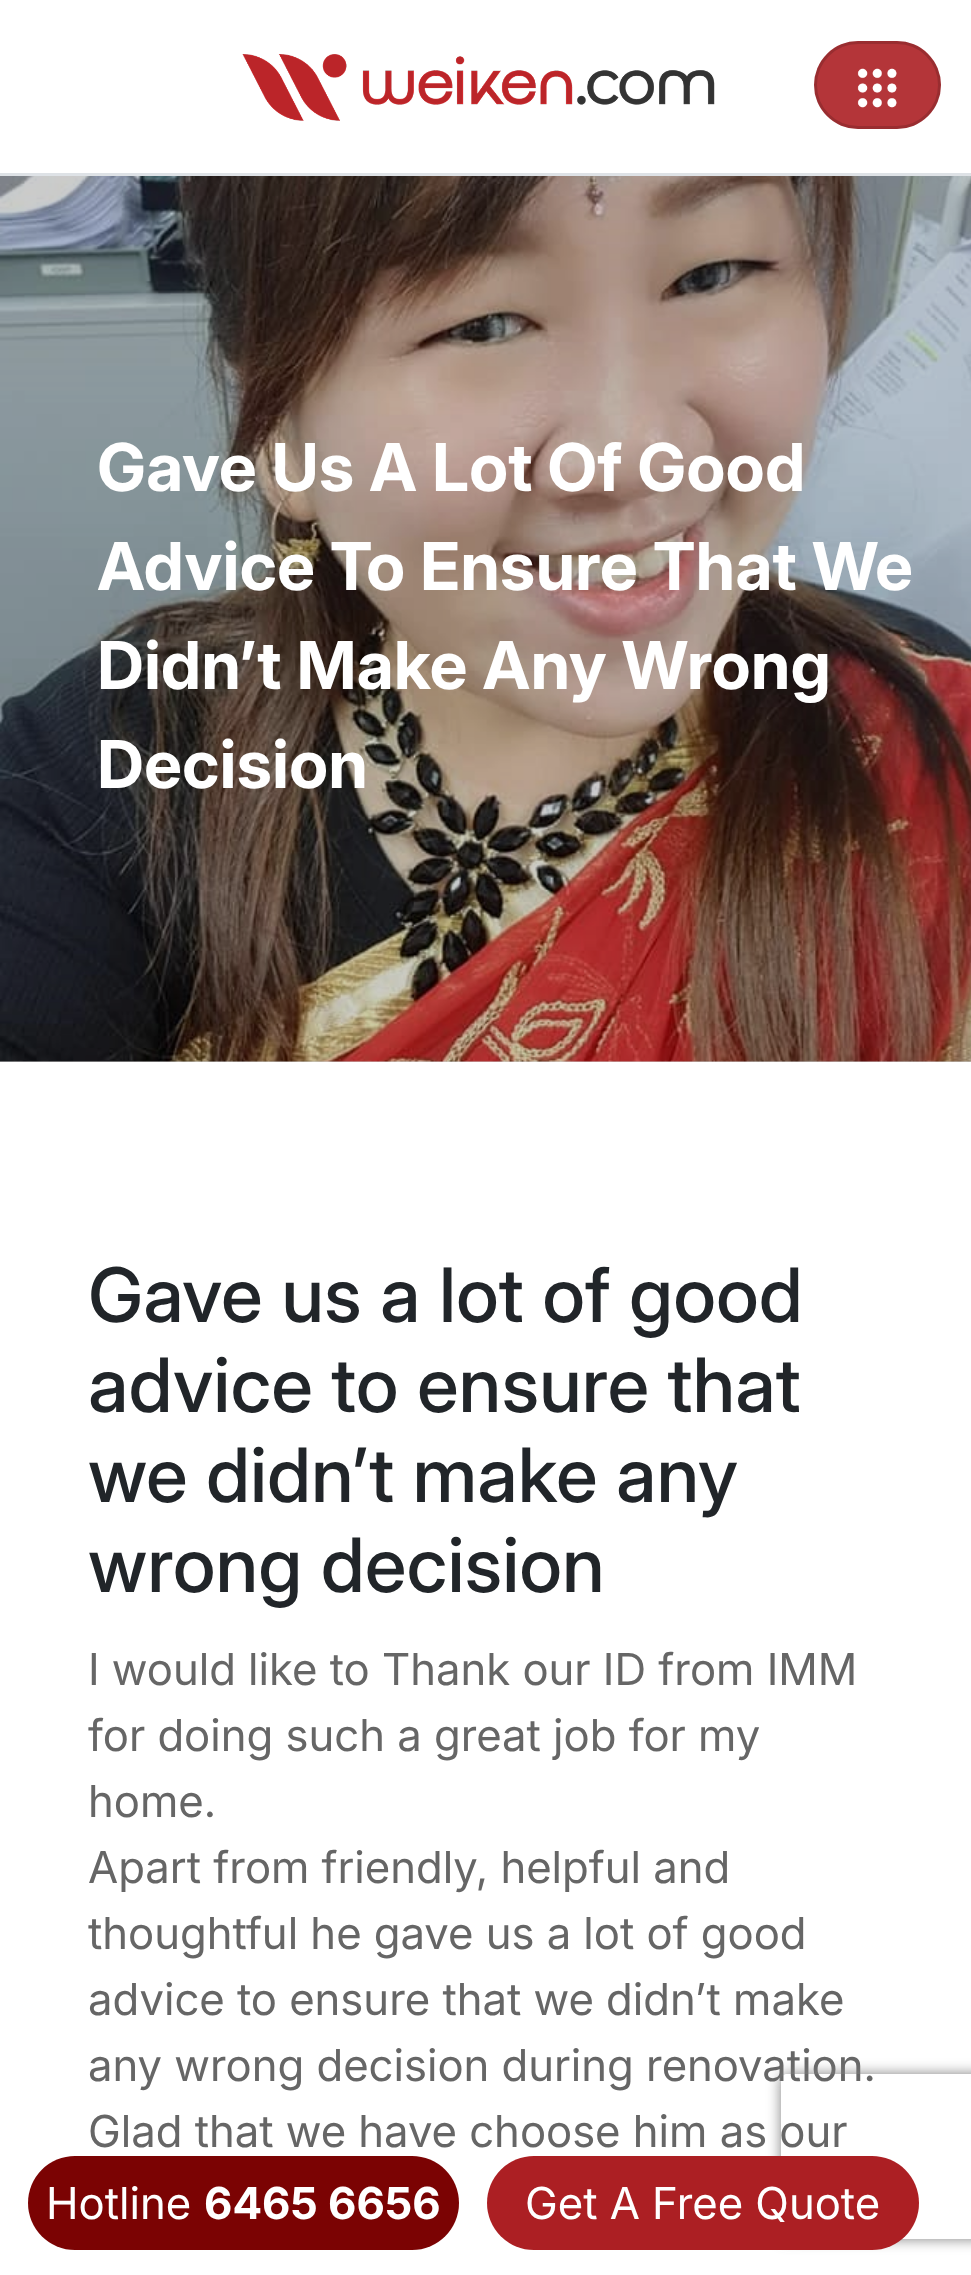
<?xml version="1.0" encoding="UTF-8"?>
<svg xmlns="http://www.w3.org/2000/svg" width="971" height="2275">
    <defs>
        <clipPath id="clip1"><path d="M 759 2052 H 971 V 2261 H 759 Z M 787 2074 H 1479 C 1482.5 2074 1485 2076.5 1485 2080 V 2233 C 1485 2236.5 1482.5 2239 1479 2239 H 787 C 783.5 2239 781 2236.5 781 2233 V 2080 C 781 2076.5 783.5 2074 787 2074 Z" clip-rule="evenodd"/></clipPath>
        <filter id="blur1" x="-50%" y="-200%" width="200%" height="500%"><feGaussianBlur stdDeviation="7"/></filter>
    </defs>
    <rect width="100%" height="100%" fill="#FFFFFF"/>
    <rect x="0" y="1061" width="971" height="1" fill="#CCCCCC"/>
    <rect x="0" y="173" width="971" height="3" fill="#DEE2E6"/>
    <image x="242" y="54" width="473" height="67" href="img_01.png"/>
    <rect x="814" y="41" width="127" height="88" rx="44" fill="#B43539"/>
    <rect x="815.5" y="42.5" width="124" height="85" rx="42.5" fill="none" stroke="#000000" stroke-opacity="0.15" stroke-width="3"/>
    <image x="857" y="68" width="40" height="40" href="img_02.png"/>
    <image x="0" y="176" width="971" height="886" href="img_03.png"/>
    <text font-family="Inter" font-size="66" font-weight="700" fill="#FFFFFF">
        <tspan x="97" y="491">Gave Us A Lot Of Good</tspan>
        <tspan x="97" y="590">Advice To Ensure That We</tspan>
        <tspan x="97" y="689">Didn’t Make Any Wrong</tspan>
        <tspan x="97" y="788">Decision</tspan>
    </text>
    <text font-family="Inter" font-size="75" font-weight="500" fill="#212529">
        <tspan x="88" y="1322">Gave us a lot of good</tspan>
        <tspan x="88" y="1412">advice to ensure that</tspan>
        <tspan x="88" y="1502">we didn’t make any</tspan>
        <tspan x="88" y="1592">wrong decision</tspan>
    </text>
    <text font-family="Inter" font-size="44" fill="#666666">
        <tspan x="88" y="1685">I would like to Thank our ID from IMM</tspan>
        <tspan x="88" y="1751">for doing such a great job for my</tspan>
        <tspan x="88" y="1817">home.</tspan>
        <tspan x="88" y="1883">Apart from friendly, helpful and</tspan>
        <tspan x="88" y="1949">thoughtful he gave us a lot of good</tspan>
        <tspan x="88" y="2015">advice to ensure that we didn’t make</tspan>
        <tspan x="88" y="2081">any wrong decision during renovation.</tspan>
        <tspan x="88" y="2147">Glad that we have choose him as our</tspan>
    </text>
    <g clip-path="url(#clip1)">
        <rect x="781" y="2074" width="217" height="165" rx="6" fill="#808080" filter="url(#blur1)"/>
    </g>
    <rect x="28" y="2156" width="431" height="94" rx="47" fill="#7B0303"/>
    <text x="46" y="2219" font-family="Inter" font-size="44" fill="#FFFFFF">Hotline</text>
    <text x="204" y="2219" font-family="'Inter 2'" font-size="44" font-weight="700" fill="#FFFFFF">6465 6656</text>
    <rect x="487" y="2156" width="432" height="94" rx="47" fill="#AC1F23"/>
    <text x="525" y="2219" font-family="Inter" font-size="44" fill="#FFFFFF">Get A Free Quote</text>
</svg>
